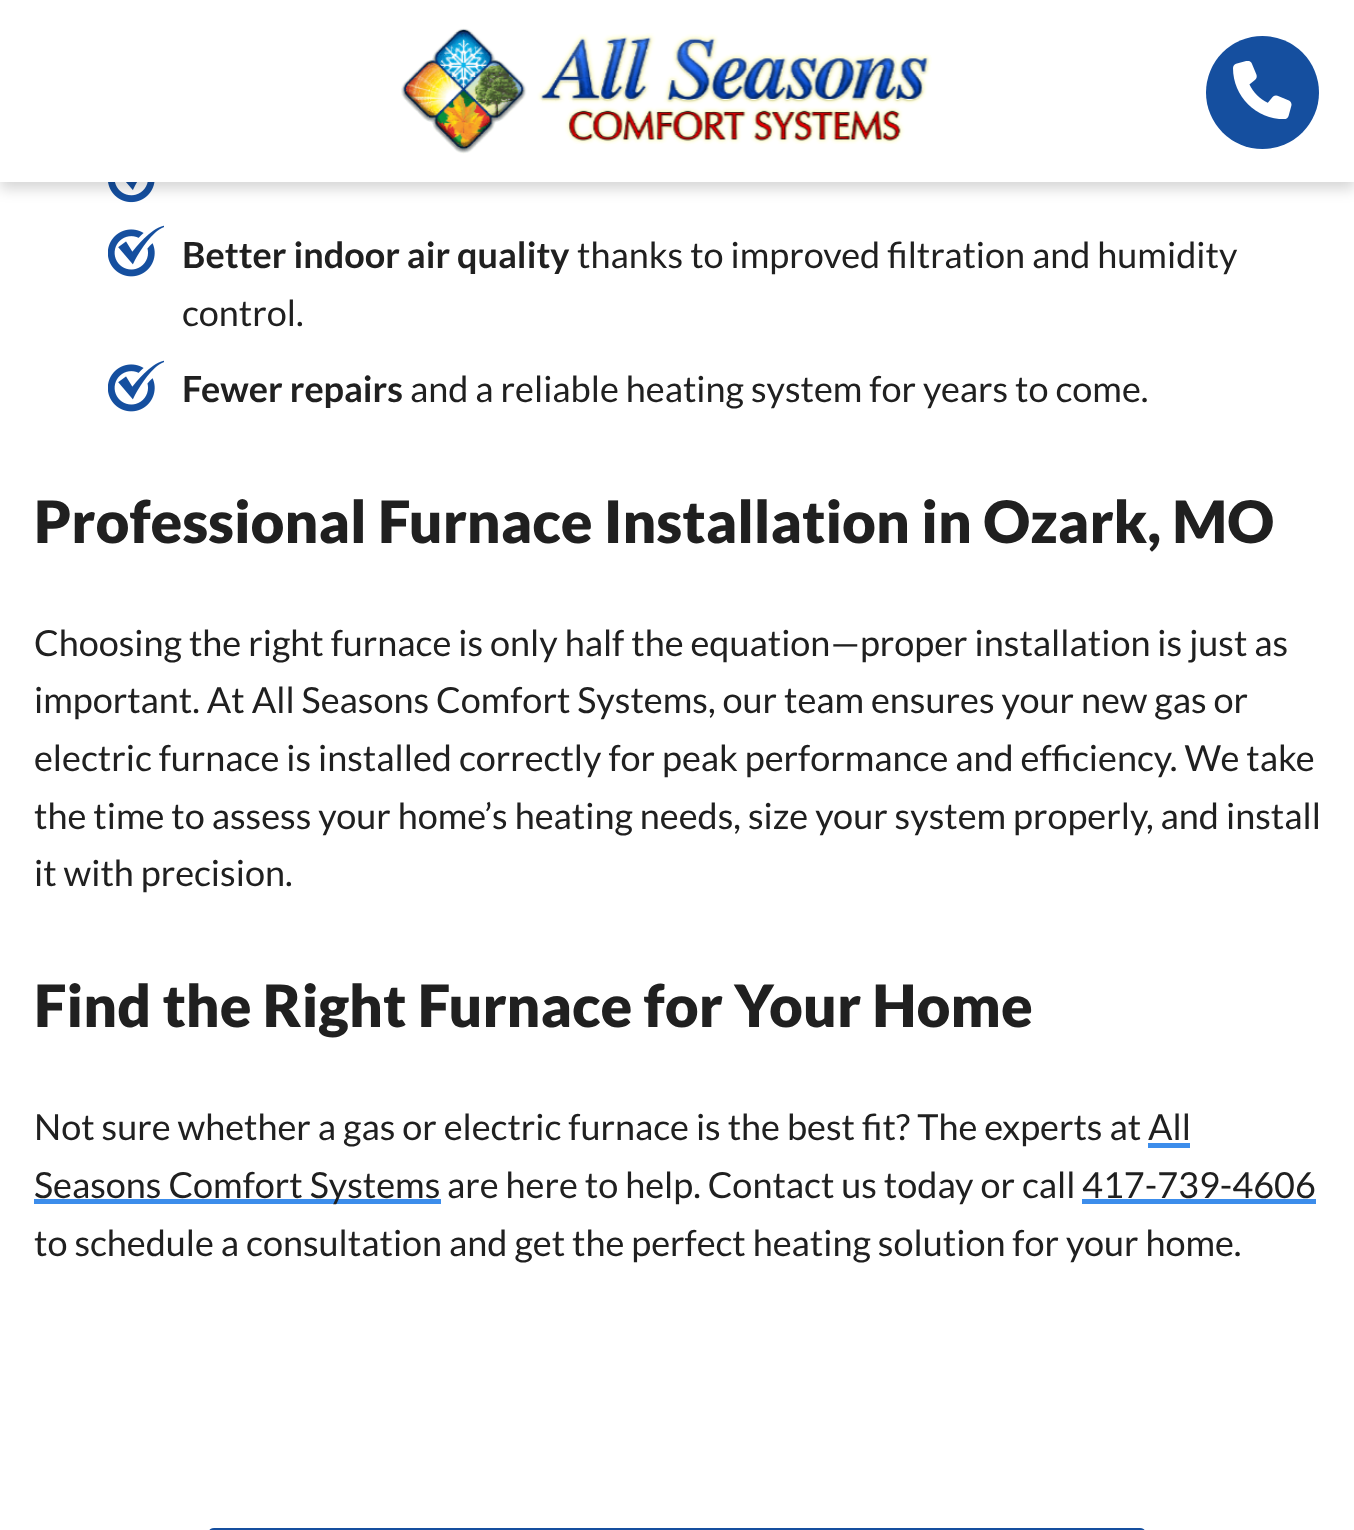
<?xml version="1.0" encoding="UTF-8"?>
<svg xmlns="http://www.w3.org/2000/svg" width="1354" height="1530">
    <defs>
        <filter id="blur1" x="-50%" y="-200%" width="200%" height="500%"><feGaussianBlur stdDeviation="7"/></filter>
    </defs>
    <rect width="100%" height="100%" fill="#FFFFFF"/>
    <image x="108" y="182" width="47" height="21" href="img_03.png"/>
    <rect x="0" y="7" width="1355" height="182" fill="#000000" fill-opacity="0.16" filter="url(#blur1)"/>
    <rect x="0" y="0" width="1354" height="182" fill="#FFFFFF"/>
    <image x="401" y="28" width="531" height="126" href="img_01.png"/>
    <circle cx="1262.5" cy="92.5" r="56.5" fill="#154F9F"/>
    <image x="1233" y="61" width="59" height="58" href="img_02.png"/>
    <image x="108" y="225" width="56" height="52" href="img_04.png"/>
    <text x="182" y="268" font-family="Lato" font-size="36" font-weight="700" fill="#202020">Better indoor air quality</text>
    <text x="577" y="268" font-family="Lato" font-size="36" fill="#202020">thanks to improved filtration and humidity</text>
    <text x="182" y="326" font-family="Lato" font-size="36" fill="#202020">control.</text>
    <image x="108" y="360" width="56" height="52" href="img_04.png"/>
    <text x="182" y="402" font-family="Lato" font-size="36" font-weight="700" fill="#202020">Fewer repairs</text>
    <text x="410" y="402" font-family="Lato" font-size="36" fill="#202020">and a reliable heating system for years to come.</text>
    <text x="34" y="543" font-family="Lato" font-size="58.5" font-weight="900" fill="#202020">Professional Furnace Installation in Ozark, MO</text>
    <text font-family="Lato" font-size="36" fill="#202020">
        <tspan x="34" y="656">Choosing the right furnace is only half the equation—proper installation is just as</tspan>
        <tspan x="34" y="713">important. At All Seasons Comfort Systems, our team ensures your new gas or</tspan>
        <tspan x="34" y="771">electric furnace is installed correctly for peak performance and efficiency. We take</tspan>
        <tspan x="34" y="829">the time to assess your home’s heating needs, size your system properly, and install</tspan>
        <tspan x="34" y="886">it with precision.</tspan>
    </text>
    <text x="34" y="1027" font-family="Lato" font-size="58.5" font-weight="900" fill="#202020">Find the Right Furnace for Your Home</text>
    <text x="34" y="1140" font-family="Lato" font-size="36" fill="#202020">Not sure whether a gas or electric furnace is the best fit? The experts at</text>
    <text x="1148" y="1140" font-family="Lato" font-size="36" fill="#202020">All</text>
    <rect x="1148" y="1143" width="42" height="5" fill="#3C8DEB"/>
    <rect x="34" y="1199" width="407" height="5" fill="#3C8DEB"/>
    <text x="34" y="1198" font-family="Lato" font-size="36" fill="#202020">Seasons Comfort Systems</text>
    <text x="447" y="1198" font-family="Lato" font-size="36" fill="#202020">are here to help. Contact us today or call</text>
    <text x="1082" y="1198" font-family="Lato" font-size="36" fill="#202020">417-739-4606</text>
    <rect x="1082" y="1199" width="234" height="5" fill="#3C8DEB"/>
    <text x="34" y="1256" font-family="Lato" font-size="36" fill="#202020">to schedule a consultation and get the perfect heating solution for your home.</text>
    <rect x="209" y="1528" width="936" height="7" rx="5" fill="#154F9F"/>
</svg>
